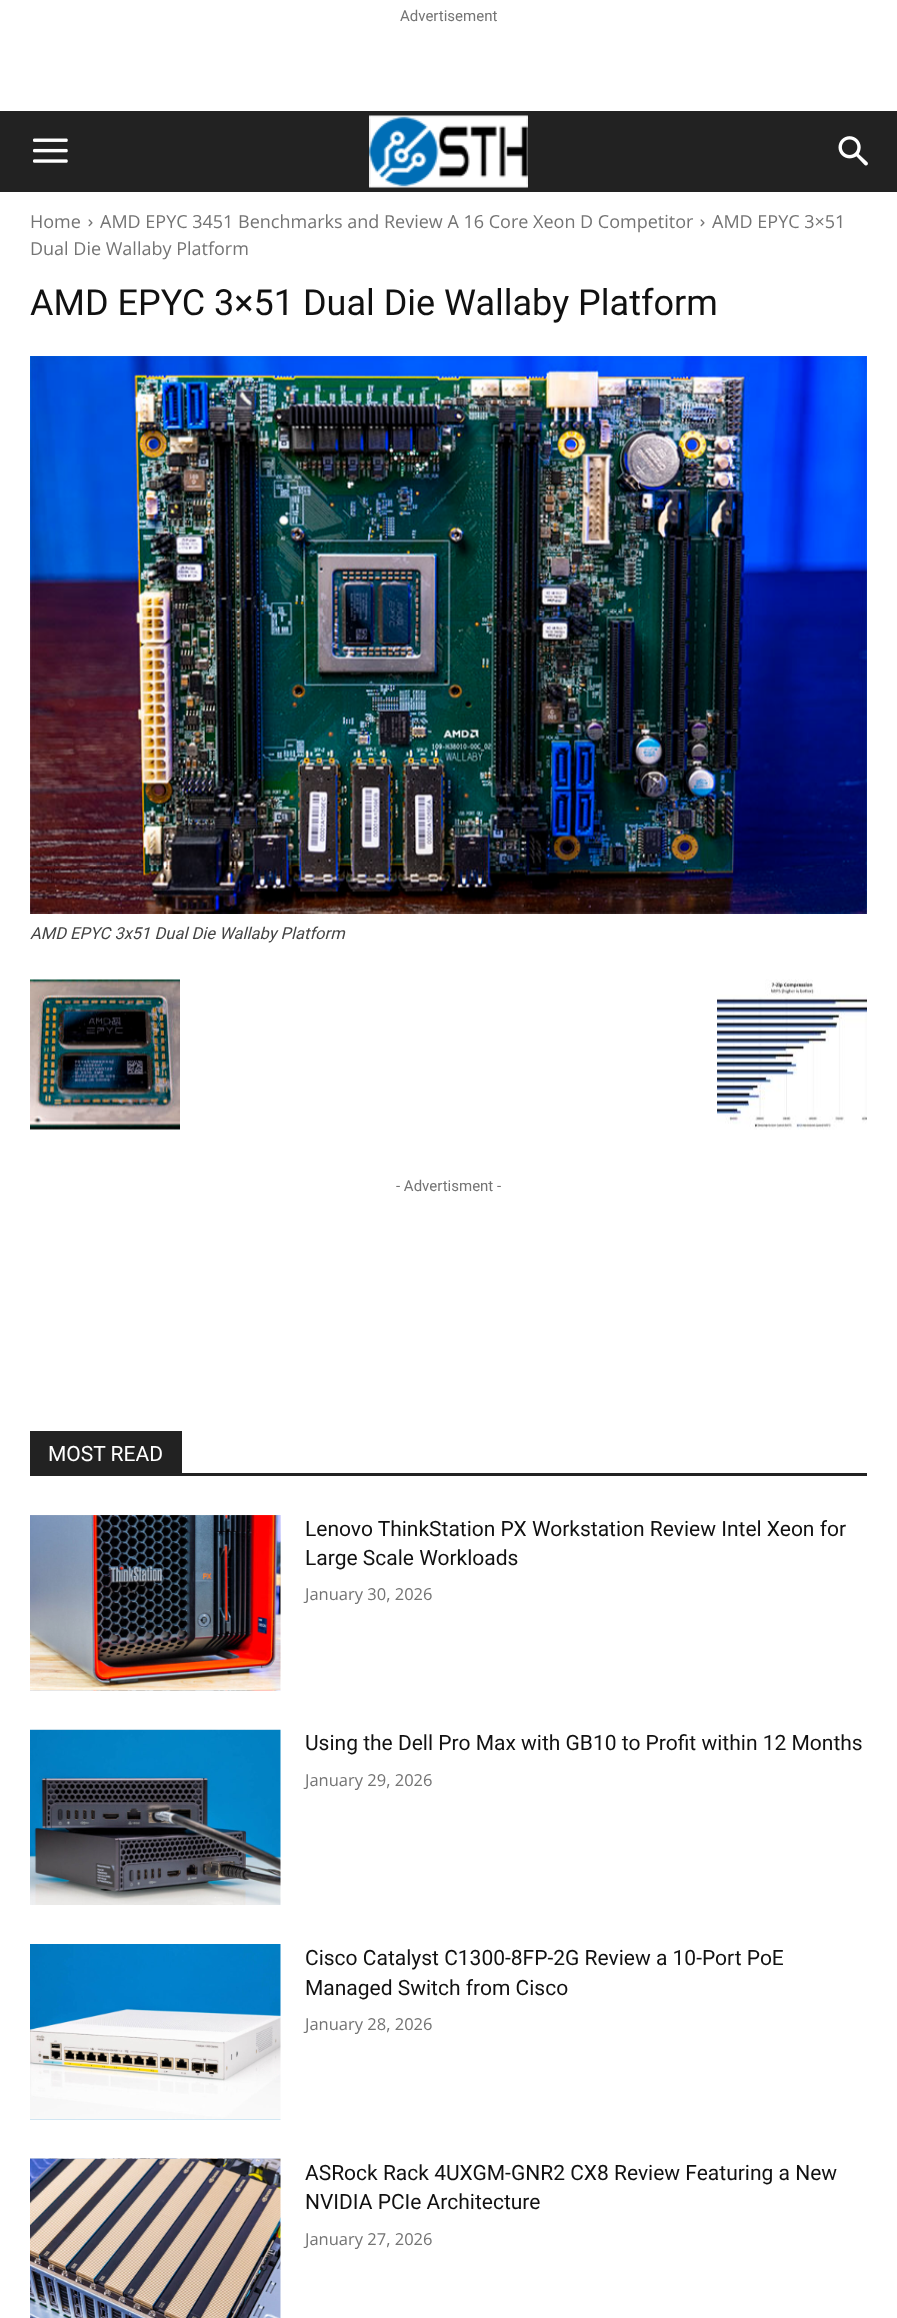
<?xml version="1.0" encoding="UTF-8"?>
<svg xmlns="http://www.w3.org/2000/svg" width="897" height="2318">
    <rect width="100%" height="100%" fill="#FFFFFF"/>
    <text x="400" y="21" font-family="Roboto" font-size="15" fill="#747474">Advertisement</text>
    <rect x="0" y="111" width="897" height="81" fill="#222222"/>
    <image x="33" y="138" width="35" height="25" href="img_01.png"/>
    <image x="369" y="115" width="159" height="73" href="img_02.png"/>
    <image x="838" y="136" width="30" height="30" href="img_03.png"/>
    <text x="30" y="228" font-family="Open Sans" font-size="18" fill="#747474">Home</text>
    <image x="88" y="219" width="5" height="8" href="img_04.png"/>
    <text x="100" y="228" font-family="Open Sans" font-size="18" fill="#747474">AMD EPYC 3451 Benchmarks and Review A 16 Core Xeon D Competitor</text>
    <image x="700" y="219" width="5" height="8" href="img_04.png"/>
    <text x="712" y="228" font-family="Open Sans" font-size="18" fill="#747474">AMD EPYC 3×51</text>
    <text x="30" y="255" font-family="Open Sans" font-size="18" fill="#747474">Dual Die Wallaby Platform</text>
    <text x="30" y="315" font-family="Roboto" font-size="36" fill="#111111">AMD EPYC 3×51 Dual Die Wallaby Platform</text>
    <image x="30" y="356" width="837" height="558" href="img_05.png"/>
    <text x="30" y="939" font-family="Roboto" font-size="16.5" font-style="italic" fill="#444444">AMD EPYC 3x51 Dual Die Wallaby Platform</text>
    <image x="30" y="979" width="150" height="151" href="img_06.png"/>
    <image x="717" y="979" width="150" height="151" href="img_07.png"/>
    <text x="396" y="1191" font-family="Roboto" font-size="15" fill="#747474">- Advertisment -</text>
    <rect x="30" y="1473" width="837" height="3" fill="#222222"/>
    <rect x="30" y="1431" width="152" height="42" fill="#222222"/>
    <text x="48" y="1461" font-family="Roboto" font-size="21" fill="#FFFFFF">MOST READ</text>
    <image x="30" y="1515" width="251" height="176" href="img_08.png"/>
    <text font-family="Roboto" font-size="21" fill="#111111">
        <tspan x="305" y="1536">Lenovo ThinkStation PX Workstation Review Intel Xeon for</tspan>
        <tspan x="305" y="1565">Large Scale Workloads</tspan>
    </text>
    <text x="305" y="1600" font-family="Open Sans" font-size="16.5" fill="#747474">January 30, 2026</text>
    <image x="30" y="1729" width="251" height="176" href="img_09.png"/>
    <text x="305" y="1750" font-family="Roboto" font-size="21" fill="#111111">Using the Dell Pro Max with GB10 to Profit within 12 Months</text>
    <text x="305" y="1786" font-family="Open Sans" font-size="16.5" fill="#747474">January 29, 2026</text>
    <image x="30" y="1944" width="251" height="176" href="img_10.png"/>
    <text font-family="Roboto" font-size="21" fill="#111111">
        <tspan x="305" y="1965">Cisco Catalyst C1300-8FP-2G Review a 10-Port PoE</tspan>
        <tspan x="305" y="1995">Managed Switch from Cisco</tspan>
    </text>
    <text x="305" y="2030" font-family="Open Sans" font-size="16.5" fill="#747474">January 28, 2026</text>
    <image x="30" y="2158" width="251" height="160" href="img_11.png"/>
    <text font-family="Roboto" font-size="21" fill="#111111">
        <tspan x="305" y="2180">ASRock Rack 4UXGM-GNR2 CX8 Review Featuring a New</tspan>
        <tspan x="305" y="2209">NVIDIA PCIe Architecture</tspan>
    </text>
    <text x="305" y="2245" font-family="Open Sans" font-size="16.5" fill="#747474">January 27, 2026</text>
</svg>
